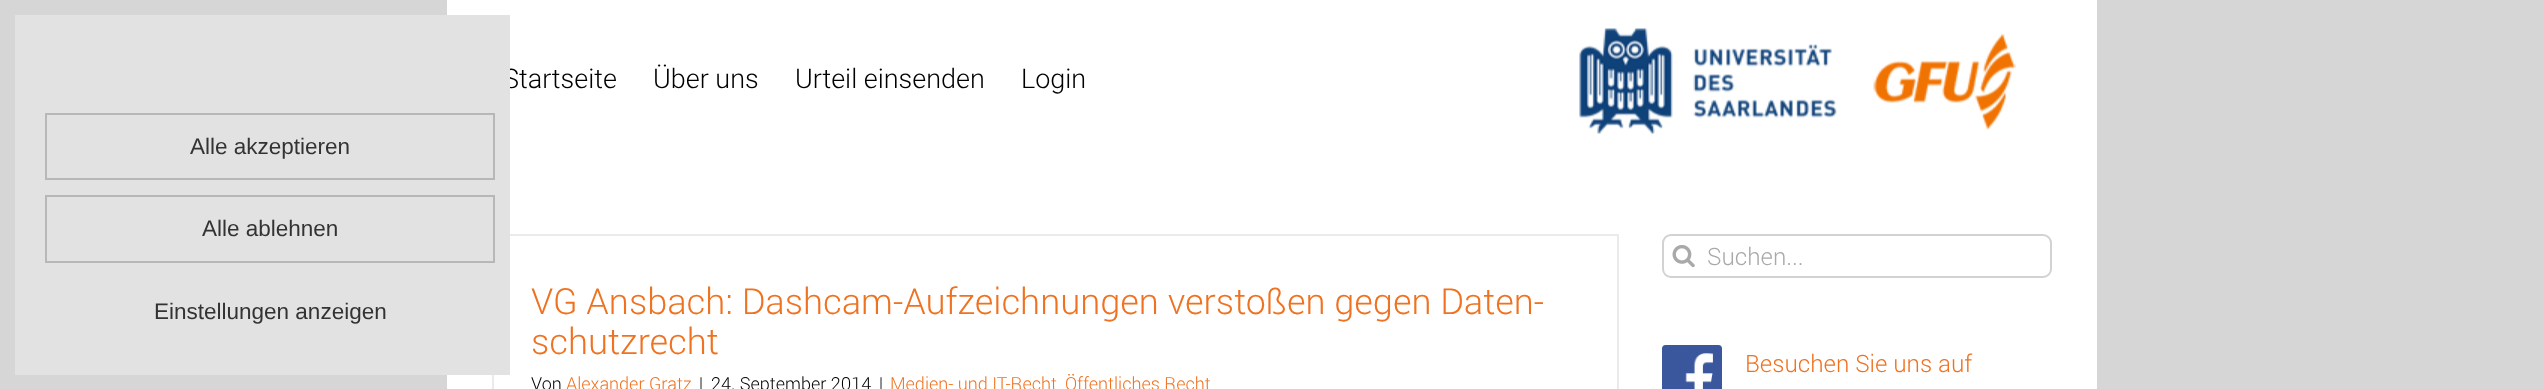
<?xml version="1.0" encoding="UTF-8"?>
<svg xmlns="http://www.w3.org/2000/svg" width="2544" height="389">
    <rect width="100%" height="100%" fill="#D7D6D6"/>
    <rect x="447" y="0" width="1650" height="389" fill="#FFFFFF"/>
    <text x="503" y="88" font-family="'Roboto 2'" font-size="27" font-weight="300" fill="#000000">Startseite</text>
    <rect x="15" y="15" width="495" height="360" fill="#E2E2E2"/>
    <rect x="46" y="114" width="448" height="65" fill="none" stroke="#B7B7B7" stroke-width="2"/>
    <text x="190" y="154" font-family="Liberation Sans" font-size="22.5" fill="#333333">Alle akzeptieren</text>
    <rect x="46" y="196" width="448" height="66" fill="none" stroke="#B7B7B7" stroke-width="2"/>
    <text x="202" y="236" font-family="Liberation Sans" font-size="22.5" fill="#333333">Alle ablehnen</text>
    <text x="154" y="319" font-family="Liberation Sans" font-size="22.5" fill="#333333">Einstellungen anzeigen</text>
    <text x="653" y="88" font-family="'Roboto 2'" font-size="27" font-weight="300" fill="#000000">Über uns</text>
    <text x="795" y="88" font-family="'Roboto 2'" font-size="27" font-weight="300" fill="#000000">Urteil einsenden</text>
    <text x="1021" y="88" font-family="'Roboto 2'" font-size="27" font-weight="300" fill="#000000">Login</text>
    <image x="1579" y="28" width="258" height="106" href="img_01.png"/>
    <image x="1873" y="33" width="143" height="97" href="img_02.png"/>
    <rect x="510" y="234" width="1109" height="2" fill="#EBEAEA"/>
    <rect x="1617" y="234" width="2" height="155" fill="#EBEAEA"/>
    <rect x="492" y="375" width="2" height="14" fill="#EBEAEA"/>
    <text font-family="Roboto" font-size="36" font-weight="300" fill="#EF7221">
        <tspan x="531" y="314">VG Ansbach: Dashcam-Aufzeichnungen verstoßen gegen Daten-</tspan>
        <tspan x="531" y="354">schutzrecht</tspan>
    </text>
    <text x="531" y="390" font-family="Roboto" font-size="18" font-weight="300" fill="#000000">Von</text>
    <text x="566" y="390" font-family="Roboto" font-size="18" font-weight="300" fill="#EF7221">Alexander Gratz</text>
    <text x="699" y="390" font-family="Roboto" font-size="18" font-weight="300" fill="#000000">|</text>
    <text x="711" y="390" font-family="Roboto" font-size="18" font-weight="300" fill="#000000">24. September 2014</text>
    <text x="879" y="390" font-family="Roboto" font-size="18" font-weight="300" fill="#000000">|</text>
    <text x="890" y="390" font-family="Roboto" font-size="18" font-weight="300" fill="#EF7221">Medien- und IT-Recht</text>
    <text x="1065" y="390" font-family="Roboto" font-size="18" font-weight="300" fill="#EF7221">Öffentliches Recht</text>
    <rect x="1663" y="235" width="388" height="42" rx="8" fill="none" stroke="#D2D2D2" stroke-width="2"/>
    <image x="1672" y="245" width="23" height="23" href="img_03.png"/>
    <text x="1707" y="265" font-family="Roboto" font-size="24" font-weight="300" fill="#AAA9A9">Suchen...</text>
    <image x="1662" y="345" width="60" height="44" href="img_04.png"/>
    <text x="1745" y="372" font-family="Roboto" font-size="24" font-weight="300" fill="#EF7221">Besuchen Sie uns auf</text>
</svg>
